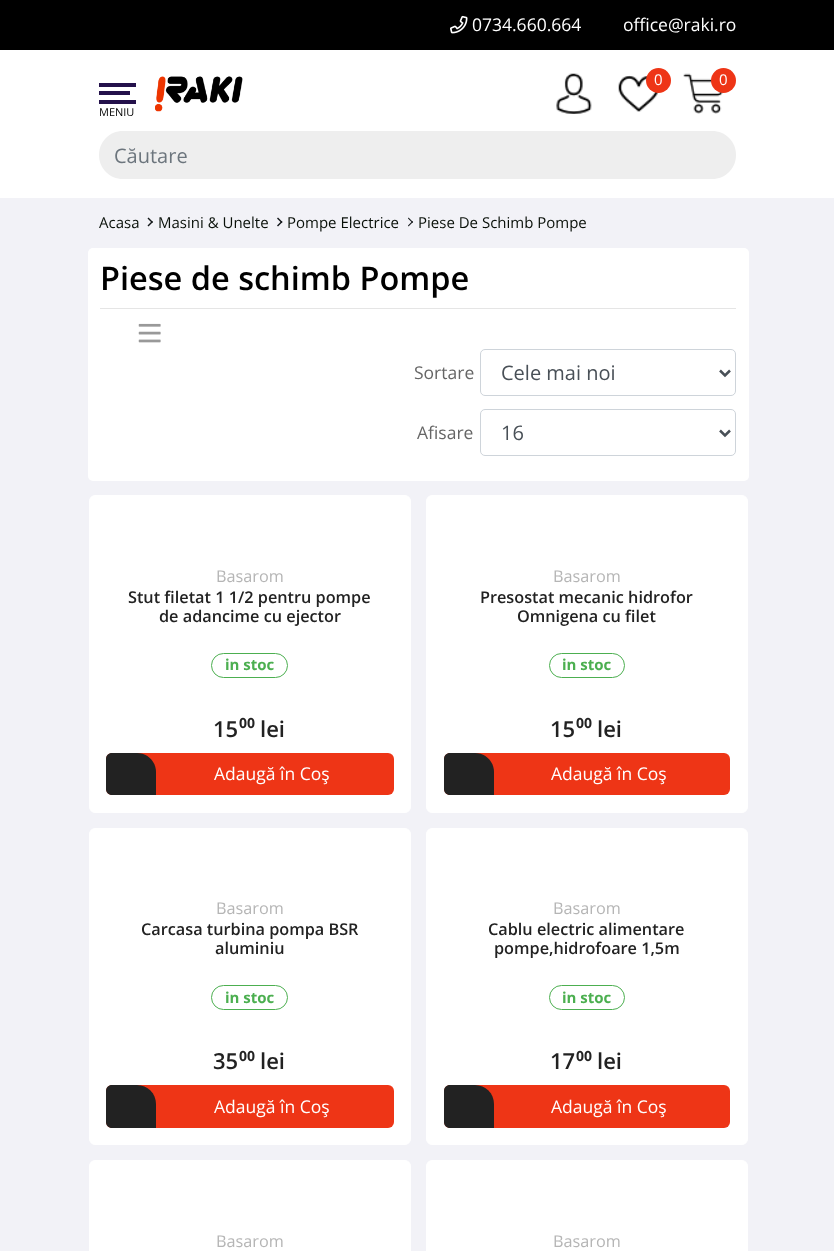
<?xml version="1.0" encoding="UTF-8"?>
<svg xmlns="http://www.w3.org/2000/svg" width="834" height="1251">
    <rect width="100%" height="100%" fill="#F2F2F7"/>
    <rect x="0" y="0" width="834" height="50" fill="#000000"/>
    <image x="450" y="15" width="18" height="19" href="img_01.png"/>
    <text x="472" y="31" font-family="Open Sans" font-size="17.5" fill="#FFFFFF">0734.660.664</text>
    <text x="623" y="31" font-family="Open Sans" font-size="17.5" fill="#FFFFFF">office@raki.ro</text>
    <rect x="0" y="50" width="834" height="148" fill="#FFFFFF"/>
    <image x="556" y="73" width="36" height="41" href="img_02.png"/>
    <image x="618" y="75" width="41" height="37" href="img_03.png"/>
    <circle cx="658.5" cy="80.5" r="12.5" fill="#EE3516"/>
    <text x="654" y="85" font-family="Open Sans" font-size="15" fill="#FFFFFF">0</text>
    <image x="683" y="73" width="40" height="41" href="img_04.png"/>
    <circle cx="723.5" cy="80.5" r="12.5" fill="#EE3516"/>
    <text x="719" y="85" font-family="Open Sans" font-size="15" fill="#FFFFFF">0</text>
    <rect x="99" y="83" width="37" height="4" fill="#24114B"/>
    <rect x="99" y="91" width="31" height="4" fill="#24114B"/>
    <rect x="99" y="100" width="37" height="4" fill="#24114B"/>
    <text x="99" y="116" font-family="Open Sans" font-size="11" fill="#000000">MENIU</text>
    <image x="155" y="76" width="88" height="36" href="img_05.png"/>
    <path d="M 123 131 H 679 V 179 H 123 C 109.5 179 99 168.5 99 155 C 99 141.5 109.5 131 123 131 Z" fill="#EEEEEE"/>
    <text x="114" y="163" font-family="Open Sans" font-size="20" fill="#6C757D">Căutare</text>
    <path d="M 679 131 H 712 C 725.5 131 736 141.5 736 155 C 736 168.5 725.5 179 712 179 H 679 Z" fill="#EEEEEE"/>
    <text x="99" y="228" font-family="Open Sans" font-size="15" fill="#091009">Acasa</text>
    <path d="M 147.5 218.5 L 148.5 217.5 L 153 222 L 152 223 Z" fill="#121618"/>
    <path d="M 147.5 225.5 L 152 221 L 153 222 L 148.5 226.5 Z" fill="#121618"/>
    <text x="158" y="228" font-family="Open Sans" font-size="15" fill="#091009">Masini &amp; Unelte</text>
    <path d="M 277 218.5 L 278 217.5 L 282.5 222 L 281.5 223 Z" fill="#121618"/>
    <path d="M 277 225.5 L 281.5 221 L 282.5 222 L 278 226.5 Z" fill="#121618"/>
    <text x="287" y="228" font-family="Open Sans" font-size="15" fill="#091009">Pompe Electrice</text>
    <path d="M 408 218.5 L 408.5 217.5 L 413 222 L 412.5 223 Z" fill="#121618"/>
    <path d="M 408 225.5 L 412.5 221 L 413 222 L 408.5 226.5 Z" fill="#121618"/>
    <text x="418" y="228" font-family="Open Sans" font-size="15" fill="#091009">Piese De Schimb Pompe</text>
    <rect x="88" y="248" width="661" height="233" rx="5" fill="#FFFFFF"/>
    <rect x="100" y="308" width="636" height="1" fill="#E5E5E5"/>
    <text x="100" y="290" font-family="Open Sans" font-size="32.5" font-weight="600" fill="#000000">Piese de schimb Pompe</text>
    <image x="138" y="323" width="23" height="20" href="img_06.png"/>
    <text x="414" y="379" font-family="Open Sans" font-size="17.5" fill="#666666">Sortare</text>
    <rect x="480.5" y="349.5" width="255" height="46" rx="4.5" fill="none" stroke="#CED4DA"/>
    <path d="M 720 370.5 L 725 375.5 L 730 370.5" fill="none" stroke="#495057" stroke-width="2.5"/>
    <text x="501" y="380" font-family="Open Sans" font-size="20" fill="#495057">Cele mai noi</text>
    <text x="417" y="439" font-family="Open Sans" font-size="17.5" fill="#666666">Afisare</text>
    <rect x="480.5" y="409.5" width="255" height="46" rx="4.5" fill="none" stroke="#CED4DA"/>
    <path d="M 720 430.5 L 725 435.5 L 730 430.5" fill="none" stroke="#495057" stroke-width="2.5"/>
    <text x="501" y="440" font-family="Open Sans" font-size="20" fill="#495057">16</text>
    <rect x="89.5" y="495.5" width="321" height="317" rx="5.5" fill="#FFFFFF" stroke="#FFFFFF"/>
    <text x="216" y="582" font-family="Open Sans" font-size="16.25" fill="#B5B5B5">Basarom</text>
    <text x="128" y="603" font-family="Open Sans" font-size="16.25" font-weight="600" fill="#222222">Stut filetat 1 1/2 pentru pompe</text>
    <text x="159" y="622" font-family="Open Sans" font-size="16.25" font-weight="600" fill="#222222">de adancime cu ejector</text>
    <rect x="211.5" y="653.5" width="76" height="24" rx="12" fill="none" stroke="#4CAF50"/>
    <text x="225" y="670" font-family="Open Sans" font-size="15" font-weight="700" fill="#4CAF50">in stoc</text>
    <text x="213" y="737" font-family="Open Sans" font-size="22" font-weight="600" fill="#222222">15</text>
    <text x="239" y="728" font-family="Open Sans" font-size="14" font-weight="700" fill="#222222">00</text>
    <text x="260" y="737" font-family="Open Sans" font-size="22" font-weight="600" fill="#222222">lei</text>
    <rect x="106" y="753" width="288" height="42" rx="6" fill="#EE3516"/>
    <path d="M 112 753 H 137 C 147.5 753 156 761.5 156 772 V 795 H 112 C 108.5 795 106 792.5 106 789 V 759 C 106 755.5 108.5 753 112 753 Z" fill="#222222"/>
    <text x="214" y="780" font-family="Open Sans" font-size="17.5" fill="#FFFFFF">Adaugă în Coş</text>
    <rect x="426.5" y="495.5" width="321" height="317" rx="5.5" fill="#FFFFFF" stroke="#FFFFFF"/>
    <text x="553" y="582" font-family="Open Sans" font-size="16.25" fill="#B5B5B5">Basarom</text>
    <text x="480" y="603" font-family="Open Sans" font-size="16.25" font-weight="600" fill="#222222">Presostat mecanic hidrofor</text>
    <text x="517" y="622" font-family="Open Sans" font-size="16.25" font-weight="600" fill="#222222">Omnigena cu filet</text>
    <rect x="549.5" y="653.5" width="75" height="24" rx="12" fill="none" stroke="#4CAF50"/>
    <text x="562" y="670" font-family="Open Sans" font-size="15" font-weight="700" fill="#4CAF50">in stoc</text>
    <text x="550" y="737" font-family="Open Sans" font-size="22" font-weight="600" fill="#222222">15</text>
    <text x="576" y="728" font-family="Open Sans" font-size="14" font-weight="700" fill="#222222">00</text>
    <text x="597" y="737" font-family="Open Sans" font-size="22" font-weight="600" fill="#222222">lei</text>
    <rect x="444" y="753" width="286" height="42" rx="6" fill="#EE3516"/>
    <path d="M 450 753 H 475 C 485.5 753 494 761.5 494 772 V 795 H 450 C 446.5 795 444 792.5 444 789 V 759 C 444 755.5 446.5 753 450 753 Z" fill="#222222"/>
    <text x="551" y="780" font-family="Open Sans" font-size="17.5" fill="#FFFFFF">Adaugă în Coş</text>
    <rect x="89.5" y="828.5" width="321" height="316" rx="5.5" fill="#FFFFFF" stroke="#FFFFFF"/>
    <text x="216" y="914" font-family="Open Sans" font-size="16.25" fill="#B5B5B5">Basarom</text>
    <text x="141" y="935" font-family="Open Sans" font-size="16.25" font-weight="600" fill="#222222">Carcasa turbina pompa BSR</text>
    <text x="215" y="954" font-family="Open Sans" font-size="16.25" font-weight="600" fill="#222222">aluminiu</text>
    <rect x="211.5" y="985.5" width="76" height="24" rx="12" fill="none" stroke="#4CAF50"/>
    <text x="225" y="1003" font-family="Open Sans" font-size="15" font-weight="700" fill="#4CAF50">in stoc</text>
    <text x="213" y="1069" font-family="Open Sans" font-size="22" font-weight="600" fill="#222222">35</text>
    <text x="239" y="1061" font-family="Open Sans" font-size="14" font-weight="700" fill="#222222">00</text>
    <text x="260" y="1069" font-family="Open Sans" font-size="22" font-weight="600" fill="#222222">lei</text>
    <rect x="106" y="1085" width="288" height="43" rx="6" fill="#EE3516"/>
    <path d="M 112 1085 H 137 C 147.5 1085 156 1093.5 156 1104 V 1128 H 112 C 108.5 1128 106 1125.5 106 1122 V 1091 C 106 1087.5 108.5 1085 112 1085 Z" fill="#222222"/>
    <text x="214" y="1113" font-family="Open Sans" font-size="17.5" fill="#FFFFFF">Adaugă în Coş</text>
    <rect x="426.5" y="828.5" width="321" height="316" rx="5.5" fill="#FFFFFF" stroke="#FFFFFF"/>
    <text x="553" y="914" font-family="Open Sans" font-size="16.25" fill="#B5B5B5">Basarom</text>
    <text x="488" y="935" font-family="Open Sans" font-size="16.25" font-weight="600" fill="#222222">Cablu electric alimentare</text>
    <text x="494" y="954" font-family="Open Sans" font-size="16.25" font-weight="600" fill="#222222">pompe,hidrofoare 1,5m</text>
    <rect x="549.5" y="985.5" width="75" height="24" rx="12" fill="none" stroke="#4CAF50"/>
    <text x="562" y="1003" font-family="Open Sans" font-size="15" font-weight="700" fill="#4CAF50">in stoc</text>
    <text x="550" y="1069" font-family="Open Sans" font-size="22" font-weight="600" fill="#222222">17</text>
    <text x="576" y="1061" font-family="Open Sans" font-size="14" font-weight="700" fill="#222222">00</text>
    <text x="597" y="1069" font-family="Open Sans" font-size="22" font-weight="600" fill="#222222">lei</text>
    <rect x="444" y="1085" width="286" height="43" rx="6" fill="#EE3516"/>
    <path d="M 450 1085 H 475 C 485.5 1085 494 1093.5 494 1104 V 1128 H 450 C 446.5 1128 444 1125.5 444 1122 V 1091 C 444 1087.5 446.5 1085 450 1085 Z" fill="#222222"/>
    <text x="551" y="1113" font-family="Open Sans" font-size="17.5" fill="#FFFFFF">Adaugă în Coş</text>
    <rect x="89.5" y="1160.5" width="321" height="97" rx="5.5" fill="#FFFFFF" stroke="#FFFFFF"/>
    <text x="216" y="1247" font-family="Open Sans" font-size="16.25" fill="#B5B5B5">Basarom</text>
    <rect x="426.5" y="1160.5" width="321" height="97" rx="5.5" fill="#FFFFFF" stroke="#FFFFFF"/>
    <text x="553" y="1247" font-family="Open Sans" font-size="16.25" fill="#B5B5B5">Basarom</text>
</svg>
